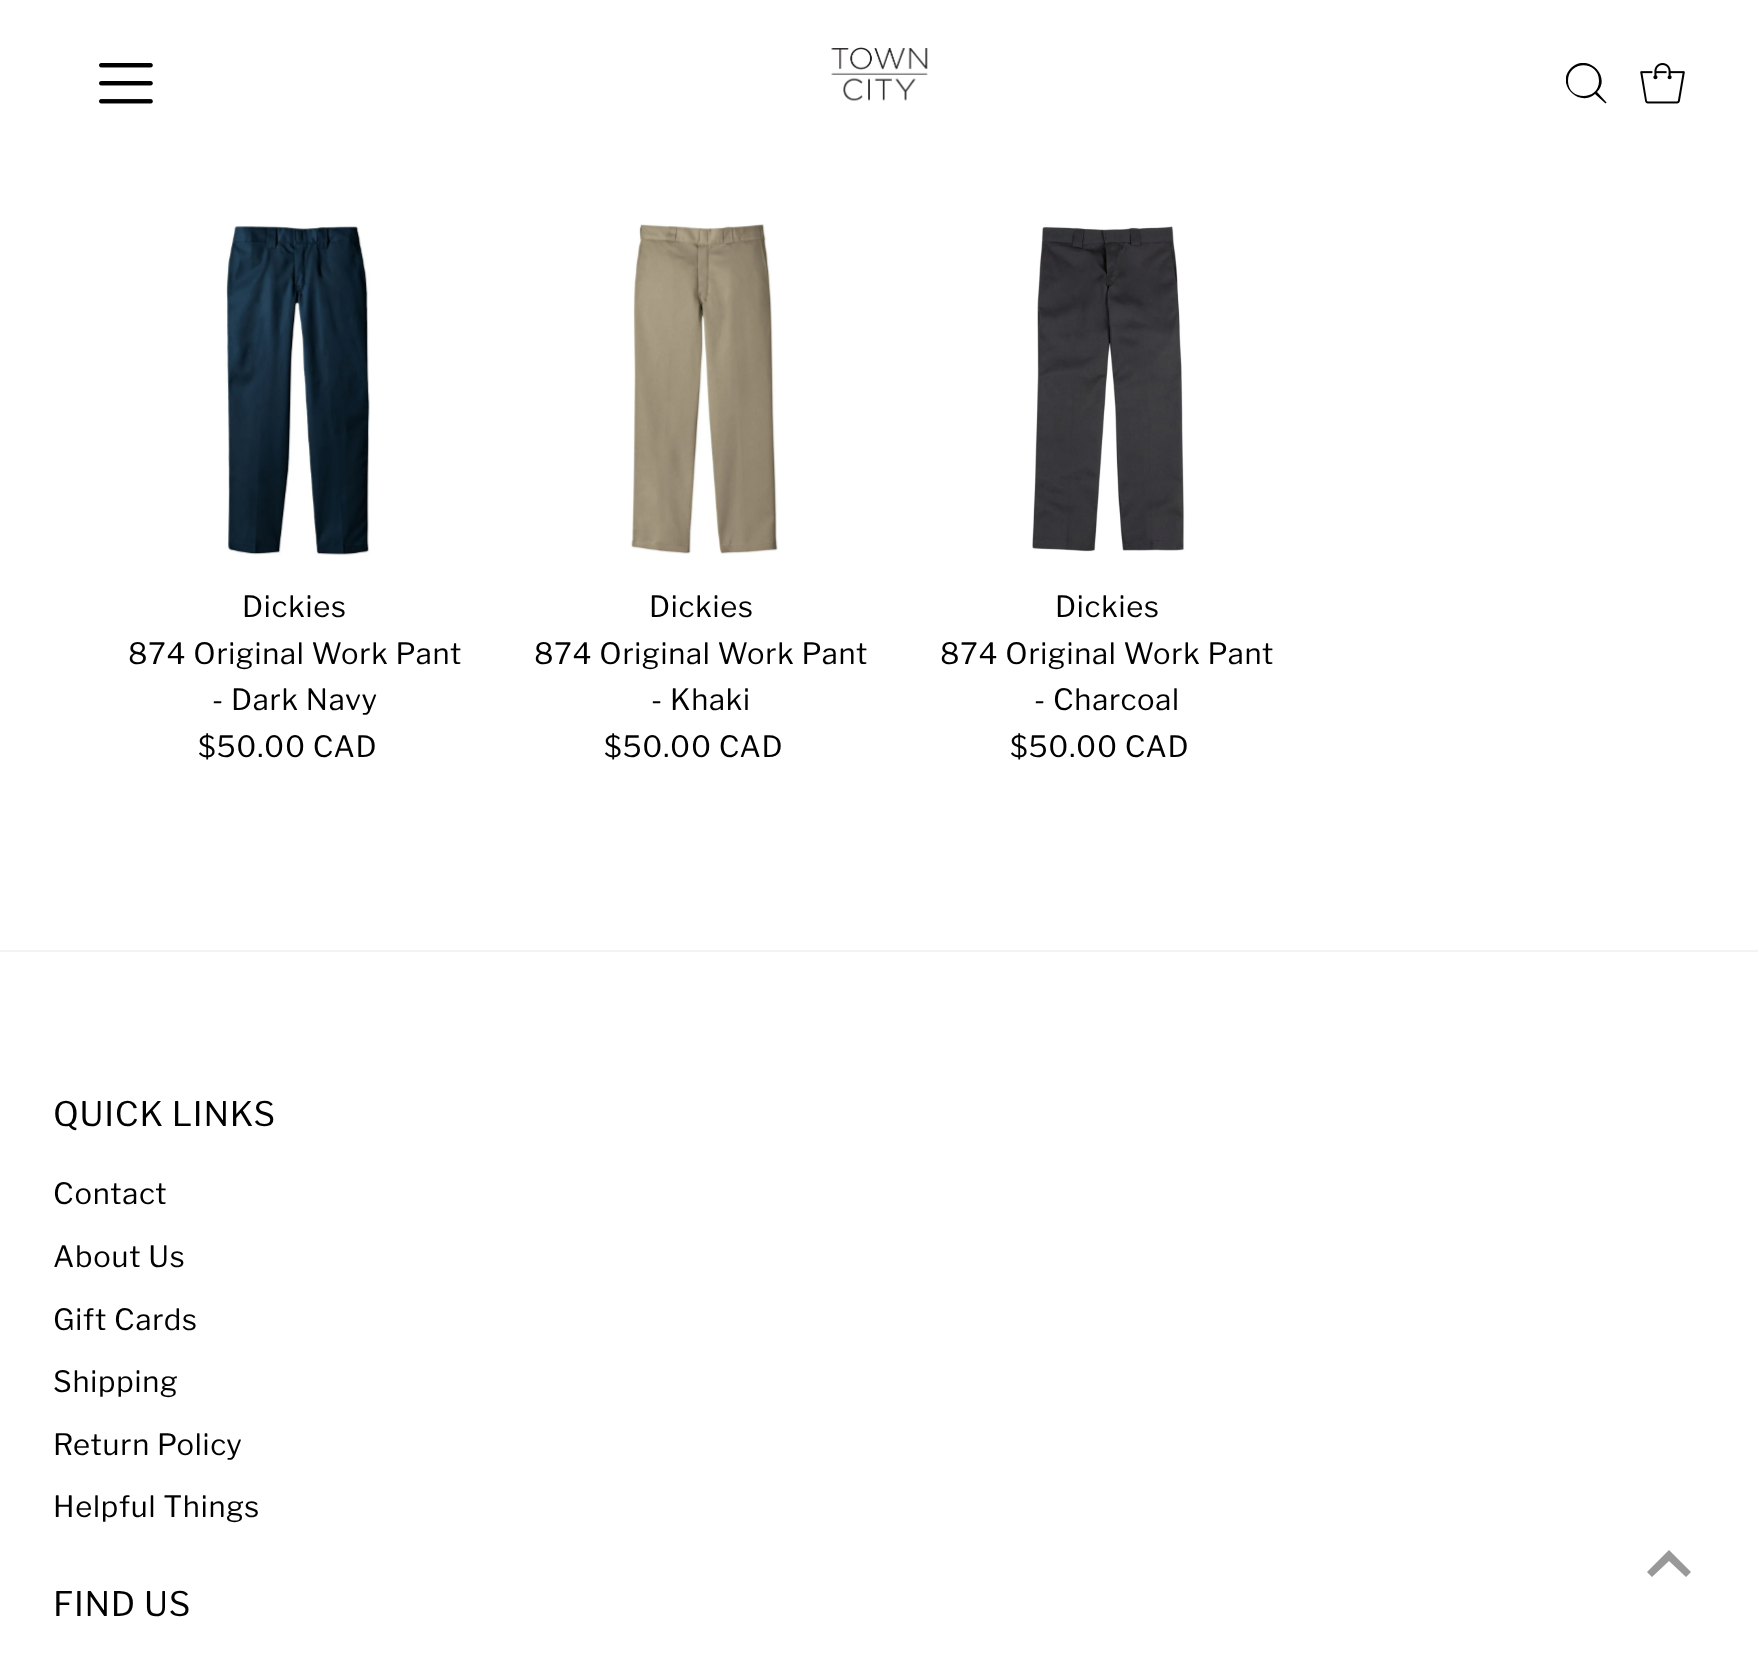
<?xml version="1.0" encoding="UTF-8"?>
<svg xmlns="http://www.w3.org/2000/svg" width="1758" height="1654">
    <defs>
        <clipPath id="clip1"><rect x="1566" y="63" width="41" height="41"/></clipPath>
    </defs>
    <rect width="100%" height="100%" fill="#FFFFFF"/>
    <image x="99" y="63" width="54" height="41" href="img_01.png"/>
    <image x="831" y="47" width="97" height="54" href="img_02.png"/>
    <g clip-path="url(#clip1)">
        <path d="M 1606 102 L 1597 92 C 1612 77 1588 52 1571 68 C 1555 84 1579 108 1595 94 L 1605 103 C 1606 104 1607 102 1606 102 Z M 1568 81 C 1568 60 1599 60 1599 81 C 1599 101 1568 101 1568 81 Z" fill="#000000"/>
    </g>
    <image x="1640" y="63" width="45" height="41" href="img_03.png"/>
    <image x="225" y="225" width="145" height="331" href="img_04.png"/>
    <text x="242" y="617" font-family="Libre Franklin" font-size="29.25" letter-spacing="0.75" fill="#000000">Dickies</text>
    <text x="128" y="664" font-family="Libre Franklin" font-size="29.25" letter-spacing="0.75" fill="#000000">874 Original Work Pant</text>
    <text x="212" y="710" font-family="Libre Franklin" font-size="29.25" letter-spacing="0.75" fill="#000000">- Dark Navy</text>
    <text x="198" y="757" font-family="Libre Franklin" font-size="29.25" letter-spacing="0.75" fill="#000000">$50.00 CAD</text>
    <image x="631" y="224" width="147" height="330" href="img_05.png"/>
    <text x="649" y="617" font-family="Libre Franklin" font-size="29.25" letter-spacing="0.75" fill="#000000">Dickies</text>
    <text x="534" y="664" font-family="Libre Franklin" font-size="29.25" letter-spacing="0.75" fill="#000000">874 Original Work Pant</text>
    <text x="651" y="710" font-family="Libre Franklin" font-size="29.25" letter-spacing="0.75" fill="#000000">- Khaki</text>
    <text x="604" y="757" font-family="Libre Franklin" font-size="29.25" letter-spacing="0.75" fill="#000000">$50.00 CAD</text>
    <image x="1032" y="226" width="153" height="326" href="img_06.png"/>
    <text x="1055" y="617" font-family="Libre Franklin" font-size="29.25" letter-spacing="0.75" fill="#000000">Dickies</text>
    <text x="940" y="664" font-family="Libre Franklin" font-size="29.25" letter-spacing="0.75" fill="#000000">874 Original Work Pant</text>
    <text x="1034" y="710" font-family="Libre Franklin" font-size="29.25" letter-spacing="0.75" fill="#000000">- Charcoal</text>
    <text x="1010" y="757" font-family="Libre Franklin" font-size="29.25" letter-spacing="0.75" fill="#000000">$50.00 CAD</text>
    <rect x="0" y="950" width="1758" height="2" fill="#F3F3F3"/>
    <text x="53" y="1126" font-family="Libre Franklin" font-size="33.75" letter-spacing="0.75" fill="#000000">QUICK LINKS</text>
    <text x="53" y="1204" font-family="Libre Franklin" font-size="29.25" letter-spacing="0.75" fill="#000000">Contact</text>
    <text x="53" y="1267" font-family="Libre Franklin" font-size="29.25" letter-spacing="0.75" fill="#000000">About Us</text>
    <text x="53" y="1330" font-family="Libre Franklin" font-size="29.25" letter-spacing="0.75" fill="#000000">Gift Cards</text>
    <text x="53" y="1392" font-family="Libre Franklin" font-size="29.25" letter-spacing="0.75" fill="#000000">Shipping</text>
    <text x="53" y="1455" font-family="Libre Franklin" font-size="29.25" letter-spacing="0.75" fill="#000000">Return Policy</text>
    <text x="53" y="1517" font-family="Libre Franklin" font-size="29.25" letter-spacing="0.75" fill="#000000">Helpful Things</text>
    <text x="53" y="1616" font-family="Libre Franklin" font-size="33.75" letter-spacing="0.75" fill="#000000">FIND US</text>
    <path d="M 1669 1550 L 1647 1572 L 1652 1577 L 1669 1561 L 1686 1577 L 1691 1572 Z" fill="#999999"/>
</svg>
